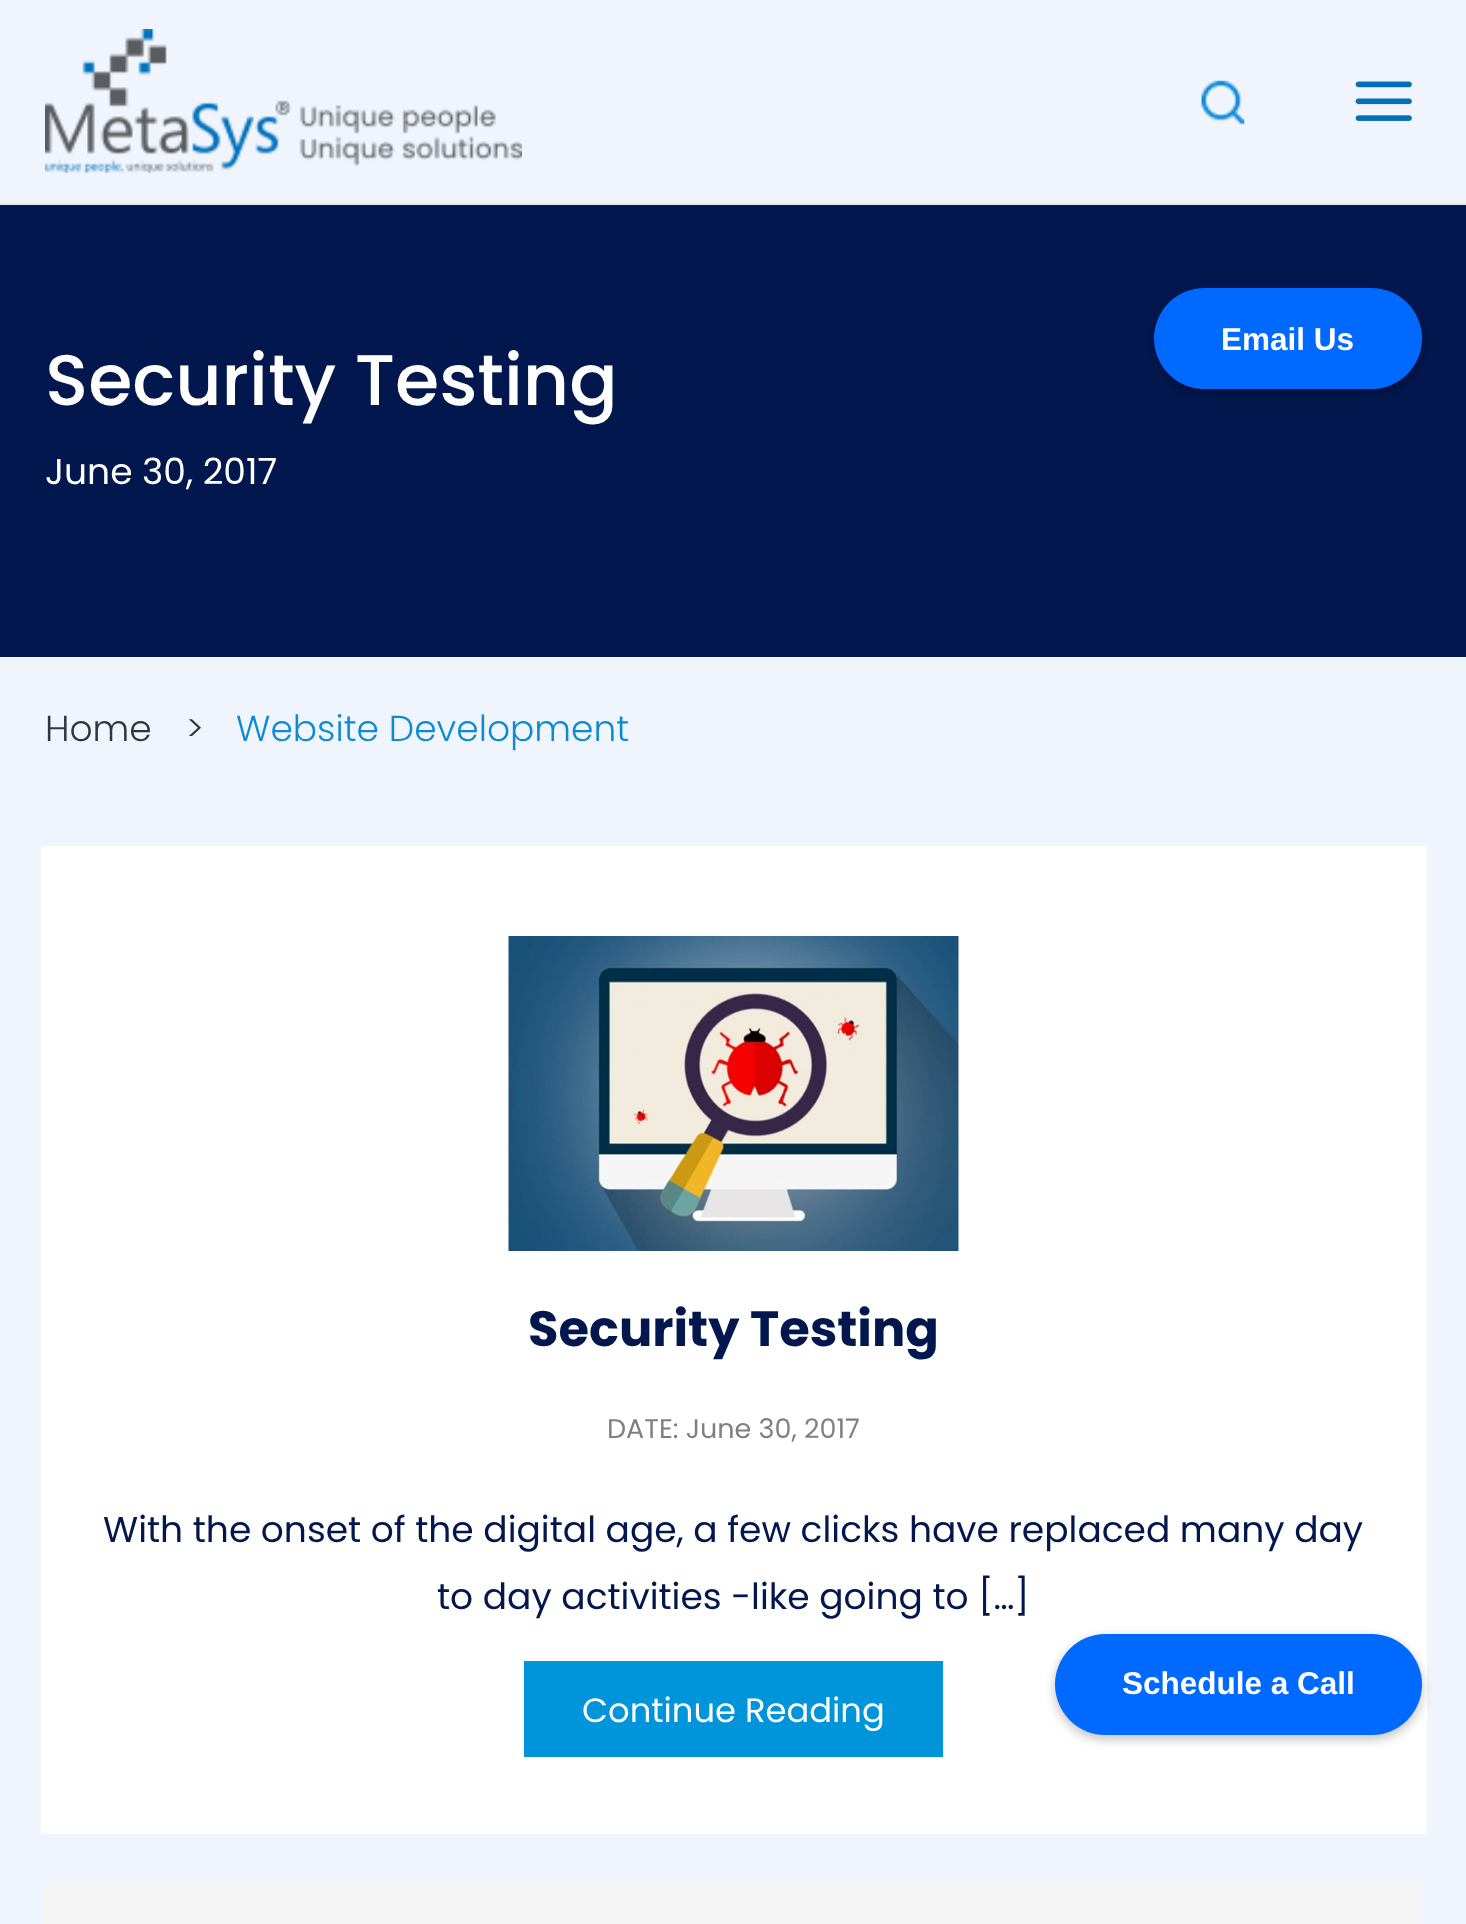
<?xml version="1.0" encoding="UTF-8"?>
<svg xmlns="http://www.w3.org/2000/svg" width="1466" height="1924">
    <defs>
        <filter id="blur1" x="-50%" y="-200%" width="200%" height="500%"><feGaussianBlur stdDeviation="5.5"/></filter>
    </defs>
    <rect width="100%" height="100%" fill="#EFF4FD"/>
    <rect x="0" y="205" width="1466" height="452" fill="#02174E"/>
    <rect x="1154" y="293" width="268" height="101" rx="50.5" fill="#000000" fill-opacity="0.25" filter="url(#blur1)"/>
    <rect x="1154" y="288" width="268" height="101" rx="50.5" fill="#0069FF"/>
    <text x="1221" y="350" font-family="Liberation Sans" font-size="31.5" font-weight="700" fill="#FFFFFF">Email Us</text>
    <rect x="0" y="203" width="1466" height="2" fill="#E5E5E5"/>
    <image x="45" y="29" width="477" height="144" href="img_01.png"/>
    <image x="1201" y="80" width="44" height="45" href="img_02.png"/>
    <image x="1355" y="81" width="57" height="40" href="img_03.png"/>
    <text x="45" y="405" font-family="Poppins" font-size="71.5" font-weight="500" fill="#FFFFFF">Security Testing</text>
    <text x="45" y="484" font-family="Poppins" font-size="36" fill="#FFFFFF">June 30, 2017</text>
    <text x="45" y="741" font-family="Poppins" font-size="36" font-weight="300" fill="#33353C">Home</text>
    <text x="186" y="741" font-family="Poppins" font-size="36" font-weight="300" fill="#33353C">&gt;</text>
    <text x="236" y="741" font-family="Poppins" font-size="36" font-weight="300" fill="#0C8AD4">Website Development</text>
    <rect x="41" y="846" width="1386" height="988" fill="#FFFFFF"/>
    <image x="508" y="936" width="451" height="315" href="img_04.png"/>
    <text x="528" y="1346" font-family="Poppins" font-size="49.5" font-weight="700" fill="#02174E">Security Testing</text>
    <text x="607" y="1438" font-family="Poppins" font-size="27" fill="#808080">DATE: June 30, 2017</text>
    <text x="103" y="1542" font-family="Poppins" font-size="36" fill="#02174E">With the onset of the digital age, a few clicks have replaced many day</text>
    <text x="437" y="1609" font-family="Poppins" font-size="36" fill="#02174E">to day activities -like going to […]</text>
    <rect x="524" y="1661" width="419" height="96" fill="#0095DA"/>
    <text x="582" y="1722" font-family="Poppins" font-size="33.75" fill="#FFFFFF">Continue Reading</text>
    <rect x="45" y="1879" width="1377" height="45" fill="#F5F5F5"/>
    <rect x="1055" y="1638" width="367" height="101" rx="50.5" fill="#000000" fill-opacity="0.25" filter="url(#blur1)"/>
    <rect x="1055" y="1634" width="367" height="101" rx="50.5" fill="#0069FF"/>
    <text x="1122" y="1694" font-family="Liberation Sans" font-size="31.5" font-weight="700" fill="#FFFFFF">Schedule a Call</text>
</svg>
